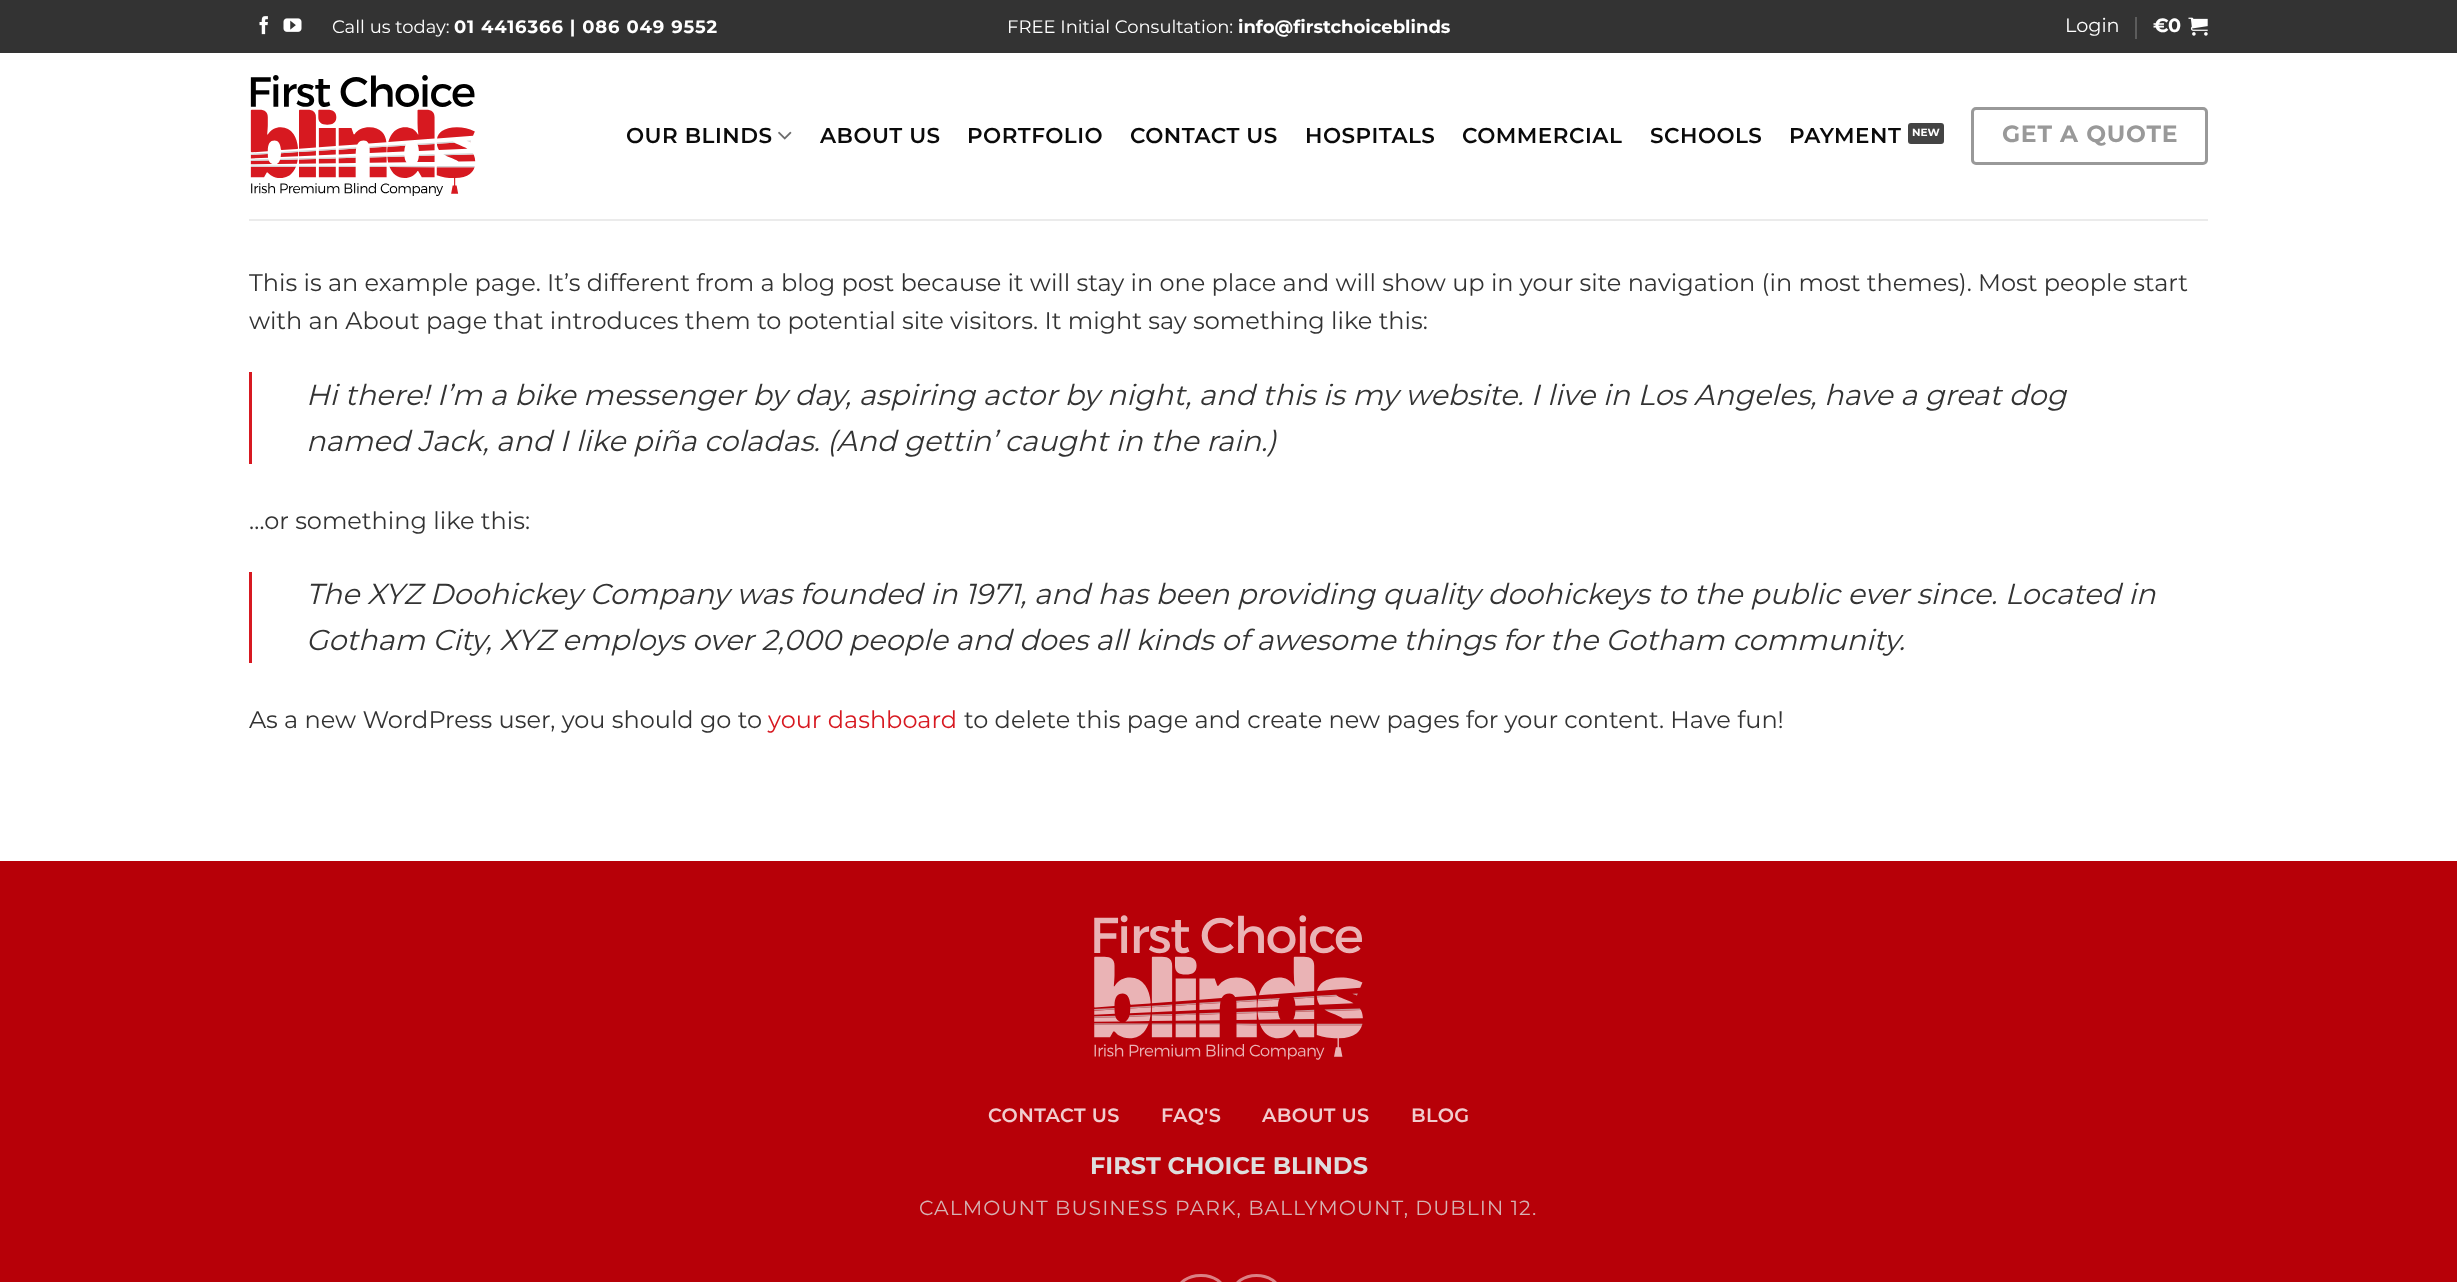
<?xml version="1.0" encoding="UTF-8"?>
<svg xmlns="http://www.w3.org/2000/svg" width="2457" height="1282">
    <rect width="100%" height="100%" fill="#FFFFFF"/>
    <rect x="0" y="0" width="2457" height="53" fill="#333333"/>
    <image x="259" y="16" width="9" height="19" href="img_01.png"/>
    <image x="283" y="18" width="19" height="14" href="img_02.png"/>
    <text x="332" y="33" font-family="Montserrat" font-size="18" fill="#FFFFFF">Call us today:</text>
    <text x="454" y="33" font-family="Montserrat" font-size="18" font-weight="700" letter-spacing="0.9" fill="#FFFFFF">01 4416366 | 086 049 9552</text>
    <text x="1007" y="33" font-family="Montserrat" font-size="18" fill="#FFFFFF">FREE Initial Consultation:</text>
    <text x="1238" y="33" font-family="Montserrat" font-size="18" font-weight="700" fill="#FFFFFF">info@firstchoiceblinds</text>
    <text x="2065" y="32" font-family="Montserrat" font-size="19.25" fill="#FFFFFF">Login</text>
    <rect x="2135" y="17" width="2" height="22" fill="#5C5C5C"/>
    <text x="2153" y="32" font-family="Montserrat" font-size="19.25" font-weight="700" fill="#FFFFFF">€</text>
    <text x="2168" y="32" font-family="Montserrat" font-size="19.25" font-weight="700" fill="#FFFFFF">0</text>
    <image x="2188" y="17" width="20" height="19" href="img_03.png"/>
    <image x="250" y="75" width="226" height="121" href="img_04.png"/>
    <text x="626" y="143" font-family="Montserrat" font-size="21.5" font-weight="600" letter-spacing="0.5" fill="#0A0A0A">OUR BLINDS</text>
    <image x="778" y="131" width="14" height="9" href="img_05.png"/>
    <text x="820" y="143" font-family="Montserrat" font-size="21.5" font-weight="600" letter-spacing="0.5" fill="#0A0A0A">ABOUT US</text>
    <text x="967" y="143" font-family="Montserrat" font-size="21.5" font-weight="600" letter-spacing="0.5" fill="#0A0A0A">PORTFOLIO</text>
    <text x="1130" y="143" font-family="Montserrat" font-size="21.5" font-weight="600" letter-spacing="0.5" fill="#0A0A0A">CONTACT US</text>
    <text x="1305" y="143" font-family="Montserrat" font-size="21.5" font-weight="600" letter-spacing="0.5" fill="#0A0A0A">HOSPITALS</text>
    <text x="1462" y="143" font-family="Montserrat" font-size="21.5" font-weight="600" letter-spacing="0.5" fill="#0A0A0A">COMMERCIAL</text>
    <text x="1650" y="143" font-family="Montserrat" font-size="21.5" font-weight="600" letter-spacing="0.5" fill="#0A0A0A">SCHOOLS</text>
    <text x="1789" y="143" font-family="Montserrat" font-size="21.5" font-weight="600" letter-spacing="0.5" fill="#0A0A0A">PAYMENT</text>
    <rect x="1908" y="123" width="36" height="21" rx="3" fill="#444444"/>
    <text x="1912" y="136" font-family="Montserrat" font-size="10.5" font-weight="700" fill="#FFFFFF">NEW</text>
    <rect x="1972.5" y="108.5" width="234" height="55" rx="3.5" fill="none" stroke="#999999" stroke-width="3"/>
    <text x="2002" y="142" font-family="Montserrat" font-size="23.5" font-weight="700" letter-spacing="0.75" fill="#999999">GET A QUOTE</text>
    <rect x="249" y="219" width="1959" height="2" fill="#EBEBEB"/>
    <text font-family="Montserrat" font-size="24" fill="#333333">
        <tspan x="249" y="291">This is an example page. It’s different from a blog post because it will stay in one place and will show up in your site navigation (in most themes). Most people start</tspan>
        <tspan x="249" y="329">with an About page that introduces them to potential site visitors. It might say something like this:</tspan>
    </text>
    <rect x="249" y="372" width="3" height="92" fill="#D71921"/>
    <text font-family="Montserrat" font-size="28.8" font-style="italic" fill="#333333">
        <tspan x="306" y="405">Hi there! I’m a bike messenger by day, aspiring actor by night, and this is my website. I live in Los Angeles, have a great dog</tspan>
        <tspan x="306" y="451">named Jack, and I like piña coladas. (And gettin’ caught in the rain.)</tspan>
    </text>
    <text x="249" y="529" font-family="Montserrat" font-size="24" fill="#333333">…or something like this:</text>
    <rect x="249" y="572" width="3" height="91" fill="#D71921"/>
    <text font-family="Montserrat" font-size="28.8" font-style="italic" fill="#333333">
        <tspan x="306" y="604">The XYZ Doohickey Company was founded in 1971, and has been providing quality doohickeys to the public ever since. Located in</tspan>
        <tspan x="306" y="650">Gotham City, XYZ employs over 2,000 people and does all kinds of awesome things for the Gotham community.</tspan>
    </text>
    <text x="249" y="728" font-family="Montserrat" font-size="24" fill="#333333">As a new WordPress user, you should go to</text>
    <text x="768" y="728" font-family="Montserrat" font-size="24" fill="#D71921">your dashboard</text>
    <text x="964" y="728" font-family="Montserrat" font-size="24" fill="#333333">to delete this page and create new pages for your content. Have fun!</text>
    <rect x="0" y="861" width="2457" height="421" fill="#B70008"/>
    <image x="1094" y="915" width="269" height="145" href="img_06.png"/>
    <text x="988" y="1122" font-family="Montserrat" font-size="19.25" font-weight="600" letter-spacing="0.4" fill="#F1CCCE">CONTACT US</text>
    <text x="1161" y="1122" font-family="Montserrat" font-size="19.25" font-weight="600" letter-spacing="0.4" fill="#F1CCCE">FAQ'S</text>
    <text x="1262" y="1122" font-family="Montserrat" font-size="19.25" font-weight="600" letter-spacing="0.4" fill="#F1CCCE">ABOUT US</text>
    <text x="1411" y="1122" font-family="Montserrat" font-size="19.25" font-weight="600" letter-spacing="0.4" fill="#F1CCCE">BLOG</text>
    <text x="1090" y="1174" font-family="Montserrat" font-size="24" font-weight="700" fill="#DEDEDE">FIRST CHOICE BLINDS</text>
    <text x="919" y="1215" font-family="Montserrat" font-size="20.4" letter-spacing="1" fill="#D6B2B3">CALMOUNT BUSINESS PARK, BALLYMOUNT, DUBLIN 12.</text>
    <rect x="1177.5" y="1275.5" width="47" height="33" rx="23" fill="none" stroke="#DB8084" stroke-width="3"/>
    <rect x="1233.5" y="1275.5" width="46" height="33" rx="23" fill="none" stroke="#DB8084" stroke-width="3"/>
</svg>
